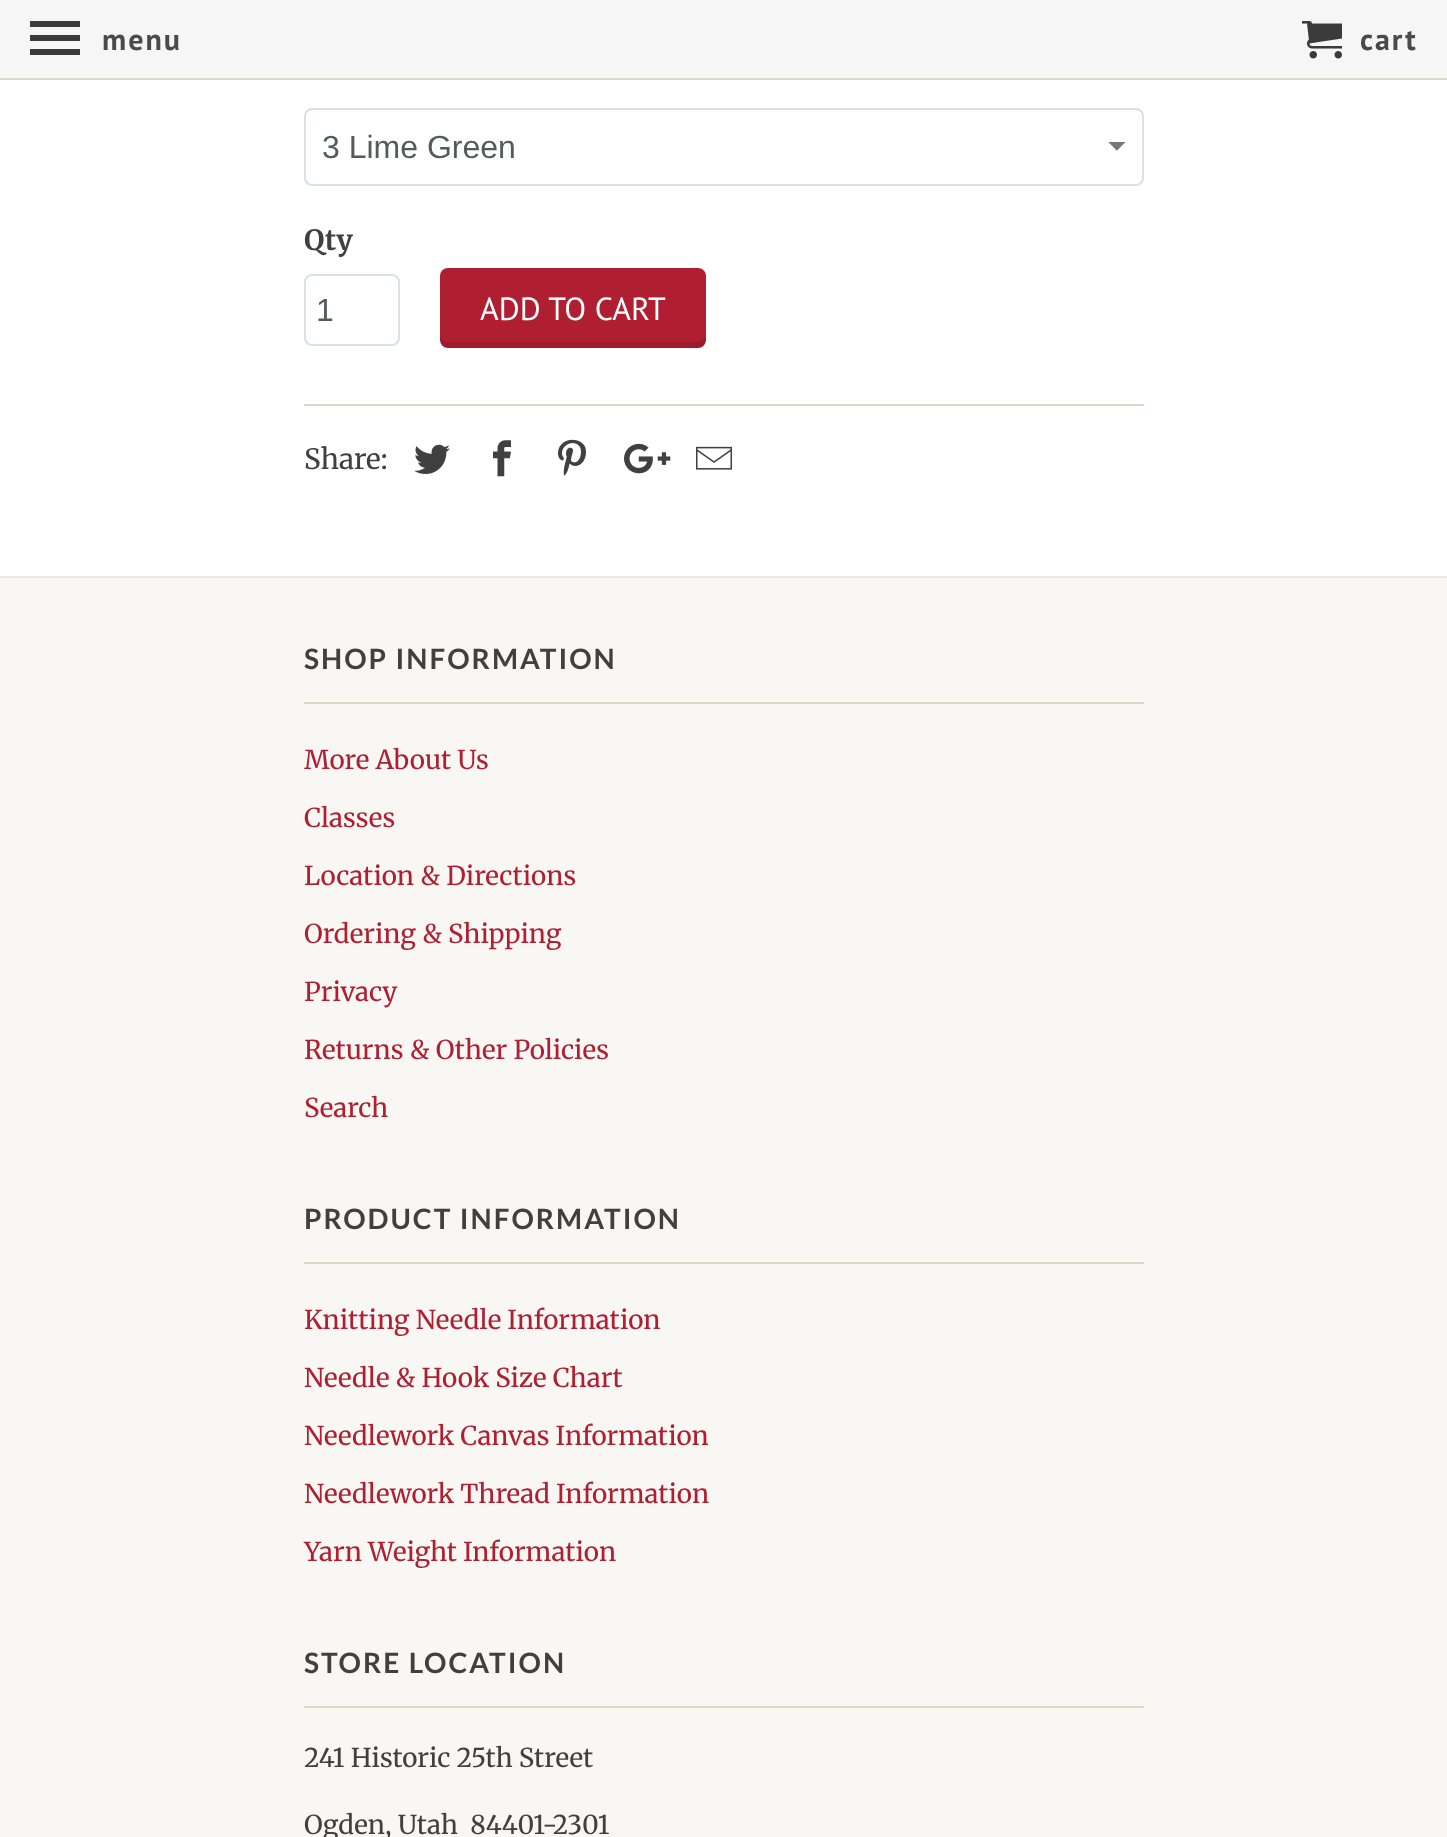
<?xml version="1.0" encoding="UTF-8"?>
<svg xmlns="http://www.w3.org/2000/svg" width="1447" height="1837">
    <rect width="100%" height="100%" fill="#FFFFFF"/>
    <rect x="0" y="0" width="1447" height="80" fill="#F5F5F5" fill-opacity="0.95"/>
    <rect x="0" y="78" width="1447" height="2" fill="#DED6C7" fill-opacity="0.95"/>
    <path d="M 30 55 H 80 V 49 H 30 Z M 30 41 H 80 V 35 H 30 Z M 30 21 V 27 H 80 V 21 Z" fill="#3A3A3A"/>
    <text x="102" y="50" font-family="PT Sans" font-size="30" font-weight="700" letter-spacing="2" fill="#4A4A4A">menu</text>
    <image x="1302" y="21" width="40" height="38" href="img_01.png"/>
    <text x="1360" y="50" font-family="PT Sans" font-size="30" font-weight="700" letter-spacing="2" fill="#4A4A4A">cart</text>
    <image x="1108" y="142" width="18" height="9" href="img_02.png"/>
    <rect x="305" y="109" width="838" height="76" rx="7" fill="none" stroke="#DCE0E0" stroke-width="2"/>
    <text x="322" y="158" font-family="Liberation Sans" font-size="32" fill="#565A5C">3 Lime Green</text>
    <text x="304" y="250" font-family="Merriweather" font-size="28" font-weight="700" fill="#404040">Qty</text>
    <rect x="305" y="275" width="94" height="70" rx="7" fill="none" stroke="#DCE0E0" stroke-width="2"/>
    <text x="316" y="321" font-family="Liberation Sans" font-size="32" fill="#565A5C">1</text>
    <rect x="440" y="268" width="266" height="80" rx="8" fill="#AF1F31"/>
    <path d="M 440 334 V 340 C 440 344 444 348 448 348 H 698 C 702 348 706 344 706 340 V 334 C 706 338 702 342 698 342 H 448 C 444 342 440 338 440 334 Z" fill="#000000" fill-opacity="0.1"/>
    <text x="480" y="320" font-family="PT Sans" font-size="32" fill="#FFFFFF">ADD TO CART</text>
    <rect x="304" y="404" width="840" height="2" fill="#DED6C7"/>
    <text x="304" y="469" font-family="Merriweather" font-size="28" fill="#404040">Share:</text>
    <image x="414" y="444" width="36" height="30" href="img_03.png"/>
    <image x="493" y="440" width="18" height="37" href="img_04.png"/>
    <image x="558" y="439" width="28" height="37" href="img_05.png"/>
    <image x="624" y="443" width="47" height="31" href="img_06.png"/>
    <image x="696" y="446" width="36" height="24" href="img_07.png"/>
    <rect x="0" y="578" width="1447" height="1259" fill="#F9F7F3"/>
    <rect x="0" y="576" width="1447" height="2" fill="#EDE9DD"/>
    <rect x="304" y="702" width="840" height="2" fill="#DED6C7"/>
    <text x="304" y="669" font-family="Lato" font-size="28" font-weight="700" letter-spacing="2" fill="#404040">SHOP INFORMATION</text>
    <text x="304" y="769" font-family="Merriweather" font-size="26" fill="#AF1F31">More About Us</text>
    <text x="304" y="827" font-family="Merriweather" font-size="26" fill="#AF1F31">Classes</text>
    <text x="304" y="885" font-family="Merriweather" font-size="26" fill="#AF1F31">Location &amp; Directions</text>
    <text x="304" y="943" font-family="Merriweather" font-size="26" fill="#AF1F31">Ordering &amp; Shipping</text>
    <text x="304" y="1001" font-family="Merriweather" font-size="26" fill="#AF1F31">Privacy</text>
    <text x="304" y="1059" font-family="Merriweather" font-size="26" fill="#AF1F31">Returns &amp; Other Policies</text>
    <text x="304" y="1117" font-family="Merriweather" font-size="26" fill="#AF1F31">Search</text>
    <rect x="304" y="1262" width="840" height="2" fill="#DED6C7"/>
    <text x="304" y="1229" font-family="Lato" font-size="28" font-weight="700" letter-spacing="2" fill="#404040">PRODUCT INFORMATION</text>
    <text x="304" y="1329" font-family="Merriweather" font-size="26" fill="#AF1F31">Knitting Needle Information</text>
    <text x="304" y="1387" font-family="Merriweather" font-size="26" fill="#AF1F31">Needle &amp; Hook Size Chart</text>
    <text x="304" y="1445" font-family="Merriweather" font-size="26" fill="#AF1F31">Needlework Canvas Information</text>
    <text x="304" y="1503" font-family="Merriweather" font-size="26" fill="#AF1F31">Needlework Thread Information</text>
    <text x="304" y="1561" font-family="Merriweather" font-size="26" fill="#AF1F31">Yarn Weight Information</text>
    <rect x="304" y="1706" width="840" height="2" fill="#DED6C7"/>
    <text x="304" y="1673" font-family="Lato" font-size="28" font-weight="700" letter-spacing="2" fill="#404040">STORE LOCATION</text>
    <text x="304" y="1767" font-family="Merriweather" font-size="26" fill="#404040">241 Historic 25th Street</text>
    <text x="304" y="1834" font-family="Merriweather" font-size="26" fill="#404040" xml:space="preserve">Ogden, Utah  84401-2301</text>
</svg>
